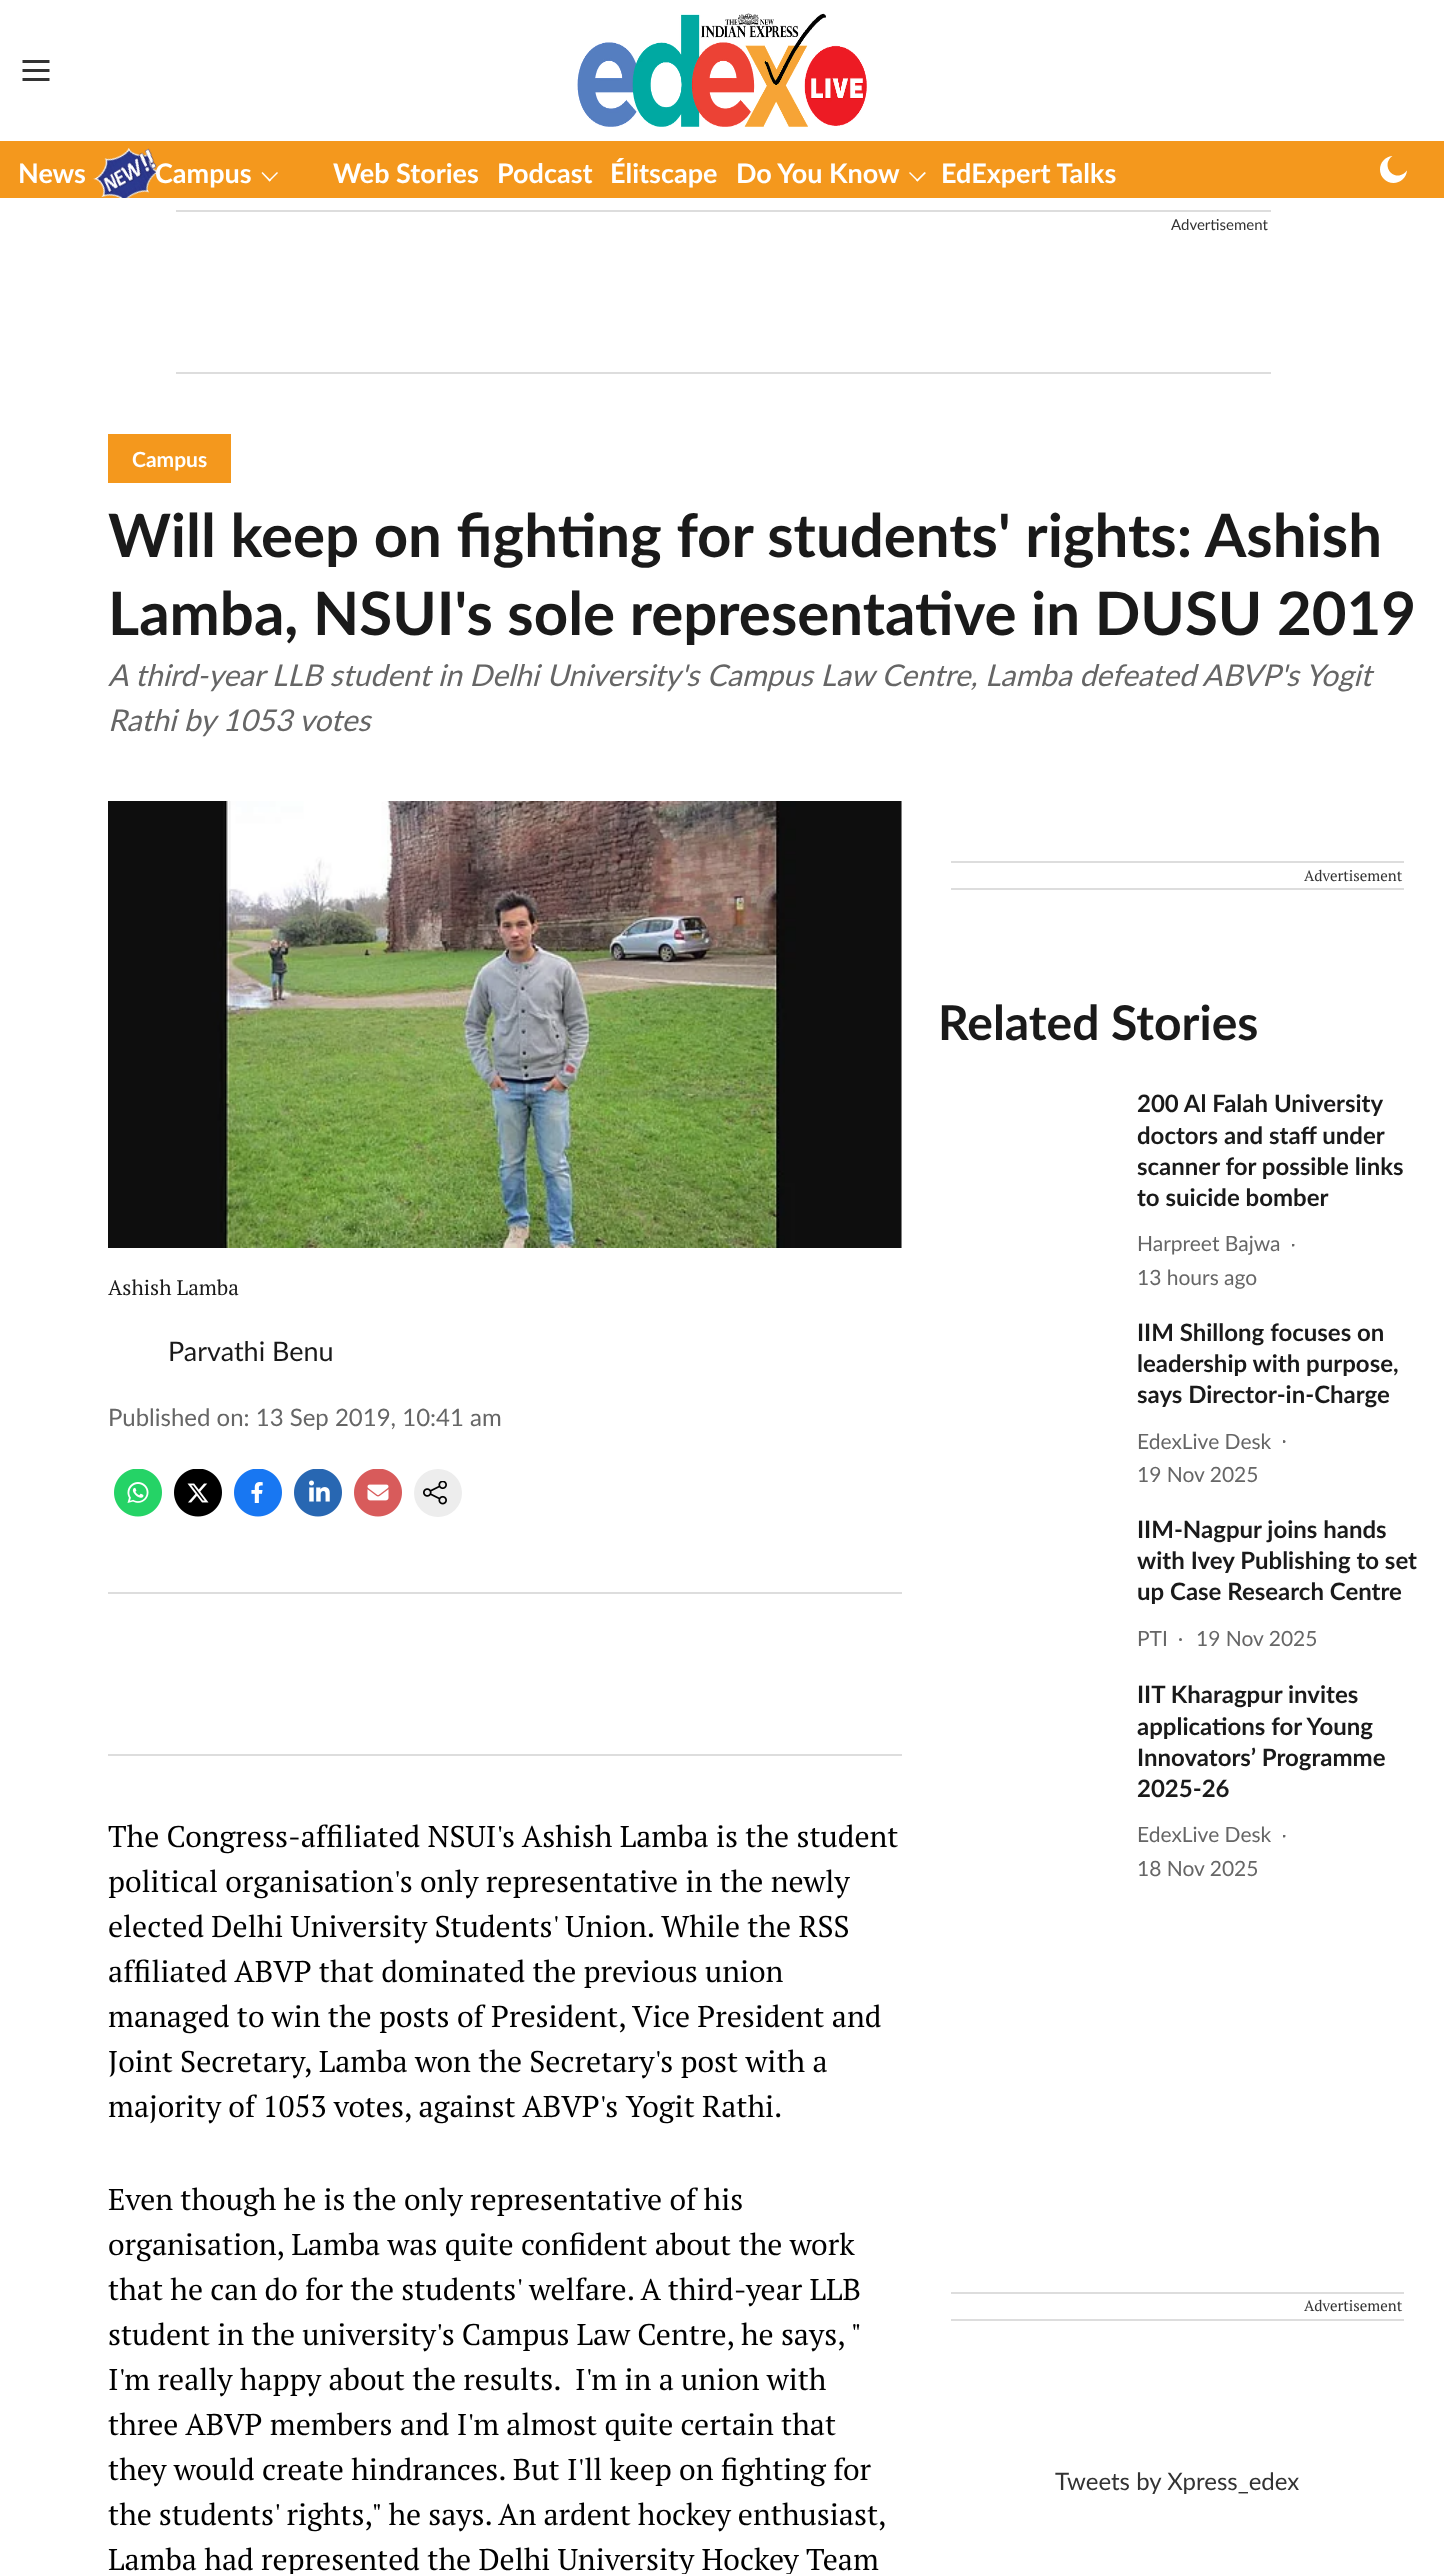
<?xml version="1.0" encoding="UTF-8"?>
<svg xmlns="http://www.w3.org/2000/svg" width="1444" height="2574">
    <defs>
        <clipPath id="clip1"><rect x="1292" y="1244" width="5" height="5"/></clipPath>
        <clipPath id="clip2"><rect x="1283" y="1440" width="5" height="5"/></clipPath>
        <clipPath id="clip3"><rect x="1283" y="1835" width="5" height="5"/></clipPath>
    </defs>
    <rect width="100%" height="100%" fill="#FFFFFF"/>
    <image x="22" y="60" width="28" height="21" href="img_01.png"/>
    <image x="577" y="13" width="290" height="114" href="img_02.png"/>
    <rect x="0" y="141" width="1444" height="57" fill="#F4981D"/>
    <text x="18" y="183" font-family="Lato" font-size="27" font-weight="700" fill="#FFFFFF">News</text>
    <image x="93" y="147" width="68" height="51" href="img_03.png"/>
    <text x="155" y="183" font-family="Lato" font-size="27" font-weight="700" fill="#FFFFFF">Campus</text>
    <path d="M 277 172 L 278 173 L 269.5 181.5 L 268.5 180.5 Z" fill="#FFFFFF"/>
    <path d="M 262.5 172 L 271 180.5 L 269.5 181.5 L 261.5 173 Z" fill="#FFFFFF"/>
    <text x="333" y="183" font-family="Lato" font-size="27" font-weight="700" fill="#FFFFFF">Web Stories</text>
    <text x="497" y="183" font-family="Lato" font-size="27" font-weight="700" fill="#FFFFFF">Podcast</text>
    <text x="610" y="183" font-family="Lato" font-size="27" font-weight="700" fill="#FFFFFF">Élitscape</text>
    <text x="736" y="183" font-family="Lato" font-size="27" font-weight="700" fill="#FFFFFF">Do You Know</text>
    <path d="M 924.5 172 L 926 173 L 917.5 181.5 L 916 180.5 Z" fill="#FFFFFF"/>
    <path d="M 910 172 L 918.5 180.5 L 917.5 181.5 L 909 173 Z" fill="#FFFFFF"/>
    <text x="941" y="183" font-family="Lato" font-size="27" font-weight="700" fill="#FFFFFF">EdExpert Talks</text>
    <image x="1380" y="156" width="27" height="27" href="img_04.png"/>
    <rect x="176" y="210" width="1095" height="2" fill="#DDDDDD"/>
    <rect x="176" y="372" width="1095" height="2" fill="#DDDDDD"/>
    <text x="1171" y="230" font-family="Lato" font-size="15" fill="#333333">Advertisement</text>
    <rect x="108" y="434" width="123" height="49" fill="#F4981D"/>
    <text x="132" y="467" font-family="Lato" font-size="21" font-weight="700" fill="#FFFFFF">Campus</text>
    <text font-family="Lato" font-size="60" font-weight="700" fill="#1A1A1A">
        <tspan x="108" y="557">Will keep on fighting for students' rights: Ashish</tspan>
        <tspan x="108" y="635">Lamba, NSUI's sole representative in DUSU 2019</tspan>
    </text>
    <text font-family="Lato" font-size="30" font-style="italic" fill="#666666">
        <tspan x="108" y="686">A third-year LLB student in Delhi University's Campus Law Centre, Lamba defeated ABVP's Yogit</tspan>
        <tspan x="108" y="731">Rathi by 1053 votes</tspan>
    </text>
    <rect x="901" y="801" width="1" height="447" fill="#F0F0F0"/>
    <image x="108" y="801" width="794" height="447" href="img_05.png"/>
    <rect x="951" y="861" width="453" height="2" fill="#DDDDDD"/>
    <rect x="951" y="888" width="453" height="2" fill="#DDDDDD"/>
    <text x="1304" y="881" font-family="PT Serif" font-size="15" fill="#333333">Advertisement</text>
    <text x="938" y="1040" font-family="Lato" font-size="48" font-weight="700" fill="#1A1A1A">Related Stories</text>
    <text font-family="Lato" font-size="24" font-weight="700" fill="#1A1A1A">
        <tspan x="1137" y="1112">200 Al Falah University</tspan>
        <tspan x="1137" y="1144">doctors and staff under</tspan>
        <tspan x="1137" y="1175">scanner for possible links</tspan>
        <tspan x="1137" y="1206">to suicide bomber</tspan>
    </text>
    <text x="1137" y="1251" font-family="Lato" font-size="21" fill="#666666">Harpreet Bajwa</text>
    <g clip-path="url(#clip1)">
        <circle cx="1293" cy="1245" r="1.5" fill="#666666"/>
    </g>
    <text x="1137" y="1285" font-family="Lato" font-size="21" fill="#666666">13 hours ago</text>
    <text font-family="Lato" font-size="24" font-weight="700" fill="#1A1A1A">
        <tspan x="1137" y="1341">IIM Shillong focuses on</tspan>
        <tspan x="1137" y="1372">leadership with purpose,</tspan>
        <tspan x="1137" y="1403">says Director-in-Charge</tspan>
    </text>
    <text x="1137" y="1449" font-family="Lato" font-size="21" fill="#666666">EdexLive Desk</text>
    <g clip-path="url(#clip2)">
        <circle cx="1284" cy="1441.5" r="1.5" fill="#666666"/>
    </g>
    <text x="1137" y="1482" font-family="Lato" font-size="21" fill="#666666">19 Nov 2025</text>
    <text font-family="Lato" font-size="24" font-weight="700" fill="#1A1A1A">
        <tspan x="1137" y="1538">IIM-Nagpur joins hands</tspan>
        <tspan x="1137" y="1569">with Ivey Publishing to set</tspan>
        <tspan x="1137" y="1600">up Case Research Centre</tspan>
    </text>
    <text x="1137" y="1646" font-family="Lato" font-size="21" fill="#666666">PTI</text>
    <circle cx="1180.5" cy="1639.5" r="1.5" fill="#666666"/>
    <text x="1196" y="1646" font-family="Lato" font-size="21" fill="#666666">19 Nov 2025</text>
    <text font-family="Lato" font-size="24" font-weight="700" fill="#1A1A1A">
        <tspan x="1137" y="1703">IIT Kharagpur invites</tspan>
        <tspan x="1137" y="1735">applications for Young</tspan>
        <tspan x="1137" y="1766">Innovators’ Programme</tspan>
        <tspan x="1137" y="1797">2025-26</tspan>
    </text>
    <text x="1137" y="1842" font-family="Lato" font-size="21" fill="#666666">EdexLive Desk</text>
    <g clip-path="url(#clip3)">
        <circle cx="1284" cy="1836" r="1.5" fill="#666666"/>
    </g>
    <text x="1137" y="1876" font-family="Lato" font-size="21" fill="#666666">18 Nov 2025</text>
    <rect x="951" y="2292" width="453" height="2" fill="#DDDDDD"/>
    <rect x="951" y="2319" width="453" height="2" fill="#DDDDDD"/>
    <text x="1304" y="2311" font-family="PT Serif" font-size="15" fill="#333333">Advertisement</text>
    <text x="1055" y="2490" font-family="Lato" font-size="24" fill="#333333">Tweets by Xpress_edex</text>
    <text x="108" y="1295" font-family="PT Serif" font-size="21" fill="#1A1A1A">Ashish Lamba</text>
    <text x="168" y="1361" font-family="Lato" font-size="27" fill="#1A1A1A">Parvathi Benu</text>
    <text x="108" y="1426" font-family="Lato" font-size="24" fill="#666666">Published on: 13 Sep 2019, 10:41 am</text>
    <image x="114" y="1469" width="48" height="48" href="img_06.png"/>
    <image x="174" y="1469" width="48" height="48" href="img_07.png"/>
    <image x="234" y="1469" width="48" height="48" href="img_08.png"/>
    <image x="294" y="1469" width="48" height="48" href="img_09.png"/>
    <image x="354" y="1469" width="48" height="48" href="img_10.png"/>
    <circle cx="438" cy="1493" r="24" fill="#EDEDED"/>
    <image x="423" y="1481" width="24" height="24" href="img_11.png"/>
    <rect x="108" y="1592" width="794" height="2" fill="#DDDDDD"/>
    <rect x="108" y="1754" width="794" height="2" fill="#DDDDDD"/>
    <text font-family="PT Serif" font-size="30" fill="#000000">
        <tspan x="108" y="1847">The Congress-affiliated NSUI's Ashish Lamba is the student</tspan>
        <tspan x="108" y="1892">political organisation's only representative in the newly</tspan>
        <tspan x="108" y="1937">elected Delhi University Students' Union. While the RSS</tspan>
        <tspan x="108" y="1982">affiliated ABVP that dominated the previous union</tspan>
        <tspan x="108" y="2027">managed to win the posts of President, Vice President and</tspan>
        <tspan x="108" y="2072">Joint Secretary, Lamba won the Secretary's post with a</tspan>
        <tspan x="108" y="2117">majority of 1053 votes, against ABVP's Yogit Rathi.</tspan>
    </text>
    <text font-family="PT Serif" font-size="30" fill="#000000" xml:space="preserve"><tspan x="108" y="2210">Even though he is the only representative of his</tspan><tspan x="108" y="2255">organisation, Lamba was quite confident about the work</tspan><tspan x="108" y="2300">that he can do for the students' welfare. A third-year LLB</tspan><tspan x="108" y="2345" word-spacing="-0.1">student in the university's Campus Law Centre, he says, "</tspan><tspan x="108" y="2390">I'm really happy about the results.  I'm in a union with</tspan><tspan x="108" y="2435">three ABVP members and I'm almost quite certain that</tspan><tspan x="108" y="2480">they would create hindrances. But I'll keep on fighting for</tspan><tspan x="108" y="2525" word-spacing="-0.25">the students' rights," he says. An ardent hockey enthusiast,</tspan><tspan x="108" y="2570">Lamba had represented the Delhi University Hockey Team</tspan></text>
</svg>
